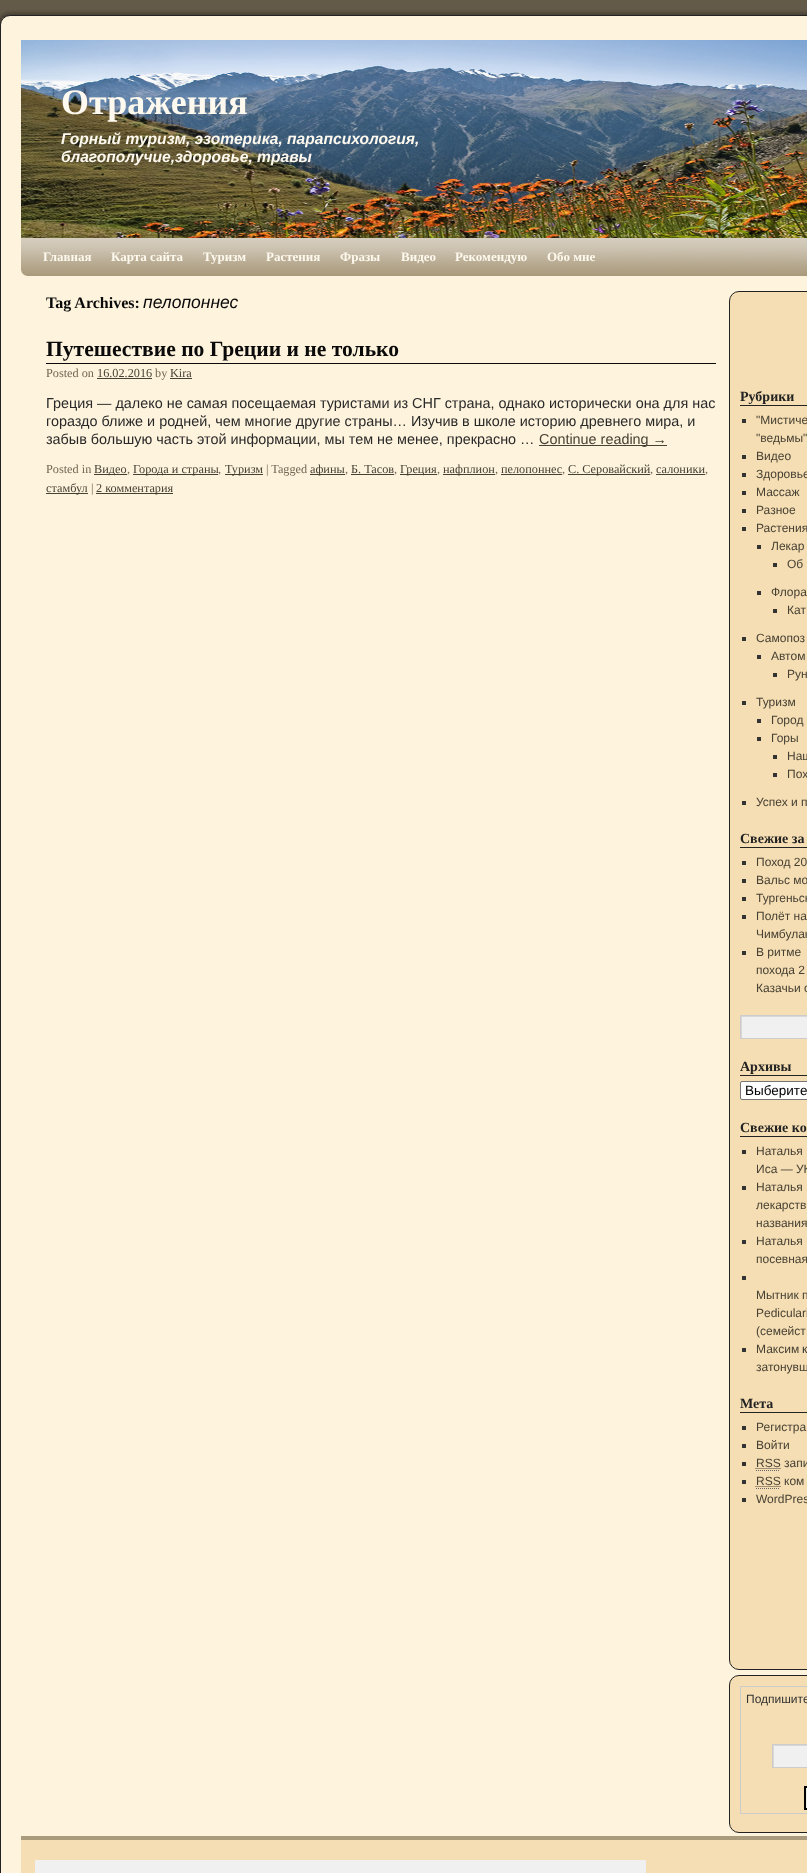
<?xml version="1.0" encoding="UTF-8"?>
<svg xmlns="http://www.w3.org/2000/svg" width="807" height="1873">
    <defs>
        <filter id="blur1" x="-50%" y="-200%" width="200%" height="500%"><feGaussianBlur stdDeviation="1.5"/></filter>
        <clipPath id="clip1"><rect x="741" y="1016" width="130" height="22"/></clipPath>
        <clipPath id="clip2"><rect x="773" y="1745" width="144" height="22"/></clipPath>
    </defs>
    <rect width="100%" height="100%" fill="#C7B491"/>
    <image x="0" y="0" width="807" height="25" href="img_01.png"/>
    <rect x="-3" y="12" width="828" height="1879" rx="13" fill="#000000" fill-opacity="0.25" filter="url(#blur1)"/>
    <rect x="0.5" y="15.5" width="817" height="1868" rx="9.5" fill="#FEF3DD" stroke="#222222"/>
    <image x="21" y="40" width="786" height="198" href="img_02.png"/>
    <text x="61" y="114" font-family="Liberation Serif" font-size="36" font-weight="700" fill="#FEF9EE">Отражения</text>
    <text font-family="Liberation Sans" font-size="15.6" font-weight="700" font-style="italic" fill="#FEF9EE">
        <tspan x="61" y="144">Горный туризм, эзотерика, парапсихология,</tspan>
        <tspan x="61" y="162">благополучие,здоровье, травы</tspan>
    </text>
    <path d="M 21 238 H 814 V 269 C 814 273 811 276 807 276 H 28 C 24 276 21 273 21 269 Z" fill="#AB9B7D"/>
    <image x="21" y="238" width="786" height="36" href="img_03.png"/>
    <text x="43" y="261" font-family="Liberation Serif" font-size="13" font-weight="700" fill="#FEF9EE">Главная</text>
    <text x="111" y="261" font-family="Liberation Serif" font-size="13" font-weight="700" fill="#FEF9EE">Карта сайта</text>
    <text x="203" y="261" font-family="Liberation Serif" font-size="13" font-weight="700" fill="#FEF9EE">Туризм</text>
    <text x="266" y="261" font-family="Liberation Serif" font-size="13" font-weight="700" fill="#FEF9EE">Растения</text>
    <text x="340" y="261" font-family="Liberation Serif" font-size="13" font-weight="700" fill="#FEF9EE">Фразы</text>
    <text x="401" y="261" font-family="Liberation Serif" font-size="13" font-weight="700" fill="#FEF9EE">Видео</text>
    <text x="455" y="261" font-family="Liberation Serif" font-size="13" font-weight="700" fill="#FEF9EE">Рекомендую</text>
    <text x="547" y="261" font-family="Liberation Serif" font-size="13" font-weight="700" fill="#FEF9EE">Обо мне</text>
    <text x="46" y="308" font-family="Liberation Serif" font-size="16" font-weight="700" fill="#0A0A0A">Tag Archives:</text>
    <text x="143" y="308" font-family="Liberation Sans" font-size="17.5" font-style="italic" fill="#0A0A0A">пелопоннес</text>
    <rect x="46" y="363" width="670" height="1" fill="#0A0A0A"/>
    <text x="46" y="356" font-family="Liberation Serif" font-size="21.6" font-weight="700" fill="#0A0A0A">Путешествие по Греции и не только</text>
    <text x="46" y="377" font-family="Liberation Serif" font-size="12.25" fill="#706752">Posted on</text>
    <text x="97" y="377" font-family="Liberation Serif" font-size="12.25" fill="#474134">16.02.2016</text>
    <rect x="97" y="378" width="55" height="1" fill="#474134"/>
    <text x="155" y="377" font-family="Liberation Serif" font-size="12.25" fill="#706752">by</text>
    <text x="170" y="377" font-family="Liberation Serif" font-size="12.25" fill="#474134">Kira</text>
    <rect x="170" y="378" width="22" height="1" fill="#474134"/>
    <text font-family="Liberation Sans" font-size="14.4" fill="#292929">
        <tspan x="46" y="408">Греция — далеко не самая посещаемая туристами из СНГ страна, однако исторически она для нас</tspan>
        <tspan x="46" y="426">гораздо ближе и родней, чем многие другие страны… Изучив в школе историю древнего мира, и</tspan>
        <tspan x="46" y="444">забыв большую часть этой информации, мы тем не менее, прекрасно …</tspan>
    </text>
    <rect x="539" y="445" width="128" height="1" fill="#474134"/>
    <text x="539" y="444" font-family="Liberation Sans" font-size="14.4" fill="#474134">Continue reading →</text>
    <text x="46" y="473" font-family="Liberation Serif" font-size="12.25" fill="#706752">Posted in</text>
    <rect x="94" y="474" width="33" height="1" fill="#474134"/>
    <text x="94" y="473" font-family="Liberation Serif" font-size="12.25" fill="#474134">Видео</text>
    <text x="127" y="473" font-family="Liberation Serif" font-size="12.25" fill="#706752">,</text>
    <rect x="133" y="474" width="85" height="1" fill="#474134"/>
    <text x="133" y="473" font-family="Liberation Serif" font-size="12.25" fill="#474134">Города и страны</text>
    <text x="218" y="473" font-family="Liberation Serif" font-size="12.25" fill="#706752">,</text>
    <rect x="225" y="474" width="38" height="1" fill="#474134"/>
    <text x="225" y="473" font-family="Liberation Serif" font-size="12.25" fill="#474134">Туризм</text>
    <text x="266" y="473" font-family="Liberation Serif" font-size="12.25" fill="#706752">| Tagged</text>
    <rect x="310" y="474" width="35" height="1" fill="#474134"/>
    <text x="310" y="473" font-family="Liberation Serif" font-size="12.25" fill="#474134">афины</text>
    <text x="345" y="473" font-family="Liberation Serif" font-size="12.25" fill="#706752">,</text>
    <text x="351" y="473" font-family="Liberation Serif" font-size="12.25" fill="#474134">Б. Тасов</text>
    <text x="394" y="473" font-family="Liberation Serif" font-size="12.25" fill="#706752">,</text>
    <rect x="351" y="474" width="43" height="1" fill="#474134"/>
    <rect x="400" y="474" width="37" height="1" fill="#474134"/>
    <text x="400" y="473" font-family="Liberation Serif" font-size="12.25" fill="#474134">Греция</text>
    <text x="437" y="473" font-family="Liberation Serif" font-size="12.25" fill="#706752">,</text>
    <rect x="443" y="474" width="52" height="1" fill="#474134"/>
    <text x="443" y="473" font-family="Liberation Serif" font-size="12.25" fill="#474134">нафплион</text>
    <text x="495" y="473" font-family="Liberation Serif" font-size="12.25" fill="#706752">,</text>
    <text x="501" y="473" font-family="Liberation Serif" font-size="12.25" fill="#474134">пелопоннес</text>
    <text x="562" y="473" font-family="Liberation Serif" font-size="12.25" fill="#706752">,</text>
    <rect x="501" y="474" width="61" height="1" fill="#474134"/>
    <rect x="568" y="474" width="82" height="1" fill="#474134"/>
    <text x="568" y="473" font-family="Liberation Serif" font-size="12.25" fill="#474134">С. Серовайский</text>
    <text x="650" y="473" font-family="Liberation Serif" font-size="12.25" fill="#706752">,</text>
    <text x="656" y="473" font-family="Liberation Serif" font-size="12.25" fill="#474134">салоники</text>
    <text x="705" y="473" font-family="Liberation Serif" font-size="12.25" fill="#706752">,</text>
    <rect x="656" y="474" width="49" height="1" fill="#474134"/>
    <rect x="46" y="493" width="42" height="1" fill="#474134"/>
    <text x="46" y="492" font-family="Liberation Serif" font-size="12.25" fill="#474134">стамбул</text>
    <text x="91" y="492" font-family="Liberation Serif" font-size="12.25" fill="#706752">|</text>
    <rect x="96" y="493" width="77" height="1" fill="#474134"/>
    <text x="96" y="492" font-family="Liberation Serif" font-size="12.25" fill="#474134">2 комментария</text>
    <rect x="729.5" y="291.5" width="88" height="1378" rx="9.5" fill="#F5DEB3" stroke="#222222"/>
    <rect x="740" y="405" width="67" height="1" fill="#222222"/>
    <text x="740" y="401" font-family="Liberation Serif" font-size="14" font-weight="700" fill="#222222">Рубрики</text>
    <rect x="742" y="419" width="4" height="4" fill="#333333"/>
    <text font-family="Liberation Sans" font-size="12" fill="#474134">
        <tspan x="756" y="424">"Мистиче</tspan>
        <tspan x="756" y="442">"ведьмы"</tspan>
    </text>
    <rect x="742" y="455" width="4" height="4" fill="#333333"/>
    <text x="756" y="460" font-family="Liberation Sans" font-size="12" fill="#474134">Видео</text>
    <rect x="742" y="473" width="4" height="4" fill="#333333"/>
    <text x="756" y="478" font-family="Liberation Sans" font-size="12" fill="#474134">Здоровье</text>
    <rect x="742" y="491" width="4" height="4" fill="#333333"/>
    <text x="756" y="496" font-family="Liberation Sans" font-size="12" fill="#474134">Массаж</text>
    <rect x="742" y="509" width="4" height="4" fill="#333333"/>
    <text x="756" y="514" font-family="Liberation Sans" font-size="12" fill="#474134">Разное</text>
    <rect x="742" y="527" width="4" height="4" fill="#333333"/>
    <text x="756" y="532" font-family="Liberation Sans" font-size="12" fill="#474134">Растения</text>
    <rect x="757" y="545" width="4" height="4" fill="#333333"/>
    <text x="771" y="550" font-family="Liberation Sans" font-size="12" fill="#474134">Лекар</text>
    <rect x="773" y="563" width="4" height="4" fill="#333333"/>
    <text x="787" y="568" font-family="Liberation Sans" font-size="12" fill="#474134">Об</text>
    <rect x="757" y="591" width="4" height="4" fill="#333333"/>
    <text x="771" y="596" font-family="Liberation Sans" font-size="12" fill="#474134">Флора</text>
    <rect x="773" y="609" width="4" height="4" fill="#333333"/>
    <text x="787" y="614" font-family="Liberation Sans" font-size="12" fill="#474134">Кат</text>
    <rect x="742" y="637" width="4" height="4" fill="#333333"/>
    <text x="756" y="642" font-family="Liberation Sans" font-size="12" fill="#474134">Самопоз</text>
    <rect x="757" y="655" width="4" height="4" fill="#333333"/>
    <text x="771" y="660" font-family="Liberation Sans" font-size="12" fill="#474134">Автом</text>
    <rect x="773" y="673" width="4" height="4" fill="#333333"/>
    <text x="787" y="678" font-family="Liberation Sans" font-size="12" fill="#474134">Рун</text>
    <rect x="742" y="701" width="4" height="4" fill="#333333"/>
    <text x="756" y="706" font-family="Liberation Sans" font-size="12" fill="#474134">Туризм</text>
    <rect x="757" y="719" width="4" height="4" fill="#333333"/>
    <text x="771" y="724" font-family="Liberation Sans" font-size="12" fill="#474134">Город</text>
    <rect x="757" y="737" width="4" height="4" fill="#333333"/>
    <text x="771" y="742" font-family="Liberation Sans" font-size="12" fill="#474134">Горы</text>
    <rect x="773" y="755" width="4" height="4" fill="#333333"/>
    <text x="787" y="760" font-family="Liberation Sans" font-size="12" fill="#474134">Наш</text>
    <rect x="773" y="773" width="4" height="4" fill="#333333"/>
    <text x="787" y="778" font-family="Liberation Sans" font-size="12" fill="#474134">Пох</text>
    <rect x="742" y="801" width="4" height="4" fill="#333333"/>
    <text x="756" y="806" font-family="Liberation Sans" font-size="12" fill="#474134">Успех и п</text>
    <rect x="740" y="847" width="67" height="1" fill="#222222"/>
    <text x="740" y="843" font-family="Liberation Serif" font-size="14" font-weight="700" fill="#222222">Свежие за</text>
    <rect x="742" y="861" width="4" height="4" fill="#333333"/>
    <text x="756" y="866" font-family="Liberation Sans" font-size="12" fill="#474134">Поход 20</text>
    <rect x="742" y="879" width="4" height="4" fill="#333333"/>
    <text x="756" y="884" font-family="Liberation Sans" font-size="12" fill="#474134">Вальс мо</text>
    <rect x="742" y="897" width="4" height="4" fill="#333333"/>
    <text x="756" y="902" font-family="Liberation Sans" font-size="12" fill="#474134">Тургеньск</text>
    <rect x="742" y="915" width="4" height="4" fill="#333333"/>
    <text font-family="Liberation Sans" font-size="12" fill="#474134">
        <tspan x="756" y="920">Полёт на</tspan>
        <tspan x="756" y="938">Чимбулак</tspan>
    </text>
    <rect x="742" y="951" width="4" height="4" fill="#333333"/>
    <text font-family="Liberation Sans" font-size="12" fill="#474134">
        <tspan x="756" y="956">В ритме</tspan>
        <tspan x="756" y="974">похода 2</tspan>
        <tspan x="756" y="992">Казачьи о</tspan>
    </text>
    <rect x="742" y="1017" width="65" height="21" fill="#F0F0F0"/>
    <g clip-path="url(#clip1)">
        <path d="M 730 1137 V 917 H 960 V 1137 Z M 742 1017 V 1039 H 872 V 1017 Z" fill="#D8D8D8" fill-rule="evenodd"/>
    </g>
    <rect x="740.5" y="1015.5" width="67" height="23" fill="none" stroke="#CCCCCC"/>
    <rect x="740" y="1075" width="67" height="1" fill="#222222"/>
    <text x="740" y="1071" font-family="Liberation Serif" font-size="14" font-weight="700" fill="#222222">Архивы</text>
    <rect x="740.5" y="1081.5" width="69" height="18" rx="1.5" fill="#FFFFFF" stroke="#767676"/>
    <text x="745" y="1095" font-family="Liberation Sans" font-size="13.5" fill="#000000">Выберите</text>
    <rect x="740" y="1136" width="67" height="1" fill="#222222"/>
    <text x="740" y="1132" font-family="Liberation Serif" font-size="14" font-weight="700" fill="#222222">Свежие ко</text>
    <rect x="742" y="1150" width="4" height="4" fill="#333333"/>
    <text font-family="Liberation Sans" font-size="12" fill="#474134">
        <tspan x="756" y="1155">Наталья</tspan>
        <tspan x="756" y="1173">Иса — УК</tspan>
    </text>
    <rect x="742" y="1186" width="4" height="4" fill="#333333"/>
    <text font-family="Liberation Sans" font-size="12" fill="#474134">
        <tspan x="756" y="1191">Наталья</tspan>
        <tspan x="756" y="1209">лекарств</tspan>
        <tspan x="756" y="1227">названия</tspan>
    </text>
    <rect x="742" y="1240" width="4" height="4" fill="#333333"/>
    <text font-family="Liberation Sans" font-size="12" fill="#474134">
        <tspan x="756" y="1245">Наталья</tspan>
        <tspan x="756" y="1263">посевная</tspan>
    </text>
    <rect x="742" y="1276" width="4" height="4" fill="#333333"/>
    <text font-family="Liberation Sans" font-size="12" fill="#474134">
        <tspan x="756" y="1299">Мытник п</tspan>
        <tspan x="756" y="1317">Pediculari</tspan>
        <tspan x="756" y="1335">(семейст</tspan>
    </text>
    <rect x="742" y="1348" width="4" height="4" fill="#333333"/>
    <text x="756" y="1353" font-family="Liberation Sans" font-size="12" fill="#474134">Максим</text>
    <text x="802" y="1353" font-family="Liberation Sans" font-size="12" fill="#333333">к</text>
    <text x="756" y="1371" font-family="Liberation Sans" font-size="12" fill="#474134">затонувш</text>
    <rect x="740" y="1412" width="67" height="1" fill="#222222"/>
    <text x="740" y="1408" font-family="Liberation Serif" font-size="14" font-weight="700" fill="#222222">Мета</text>
    <rect x="742" y="1426" width="4" height="4" fill="#333333"/>
    <text x="756" y="1431" font-family="Liberation Sans" font-size="12" fill="#474134">Регистра</text>
    <rect x="742" y="1444" width="4" height="4" fill="#333333"/>
    <text x="756" y="1449" font-family="Liberation Sans" font-size="12" fill="#474134">Войти</text>
    <rect x="742" y="1462" width="4" height="4" fill="#333333"/>
    <text x="756" y="1467" font-family="Liberation Sans" font-size="12" fill="#474134">RSS запи</text>
    <path d="M 756 1470.5 H 780" fill="none" stroke="#666666" stroke-dasharray="1 1"/>
    <path d="M 755.5 1468.5 H 780.5" fill="none" stroke="#474134" stroke-dasharray="1 1"/>
    <rect x="742" y="1480" width="4" height="4" fill="#333333"/>
    <text x="756" y="1485" font-family="Liberation Sans" font-size="12" fill="#474134">RSS ком</text>
    <path d="M 756 1488.5 H 780" fill="none" stroke="#666666" stroke-dasharray="1 1"/>
    <path d="M 755.5 1486.5 H 780.5" fill="none" stroke="#474134" stroke-dasharray="1 1"/>
    <rect x="742" y="1498" width="4" height="4" fill="#333333"/>
    <text x="756" y="1503" font-family="Liberation Sans" font-size="12" fill="#474134">WordPres</text>
    <rect x="729.5" y="1675.5" width="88" height="157" rx="9.5" fill="#F5DEB3" stroke="#222222"/>
    <rect x="740.5" y="1686.5" width="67" height="127" fill="none" stroke="#CCCCCC"/>
    <text x="746" y="1703" font-family="Liberation Sans" font-size="12" fill="#333333">Подпишите</text>
    <rect x="774" y="1746" width="33" height="21" fill="#F0F0F0"/>
    <g clip-path="url(#clip2)">
        <path d="M 739 1676 C 734 1676 730 1680 730 1685 V 1823 C 730 1828 734 1832 739 1832 H 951 C 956 1832 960 1828 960 1823 V 1685 C 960 1680 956 1676 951 1676 Z M 774 1746 V 1768 H 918 V 1746 Z" fill="#D8D8D8" fill-rule="evenodd"/>
    </g>
    <rect x="772.5" y="1744.5" width="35" height="23" fill="none" stroke="#CCCCCC"/>
    <rect x="805" y="1787" width="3" height="22" fill="#F0F0F0" stroke="#000000" stroke-width="2"/>
    <rect x="21" y="1840" width="786" height="33" fill="#F5DEB3"/>
    <rect x="21" y="1836" width="786" height="4" fill="#AB9B7D"/>
    <rect x="35" y="1860" width="611" height="13" fill="#F0F0F0"/>
</svg>
